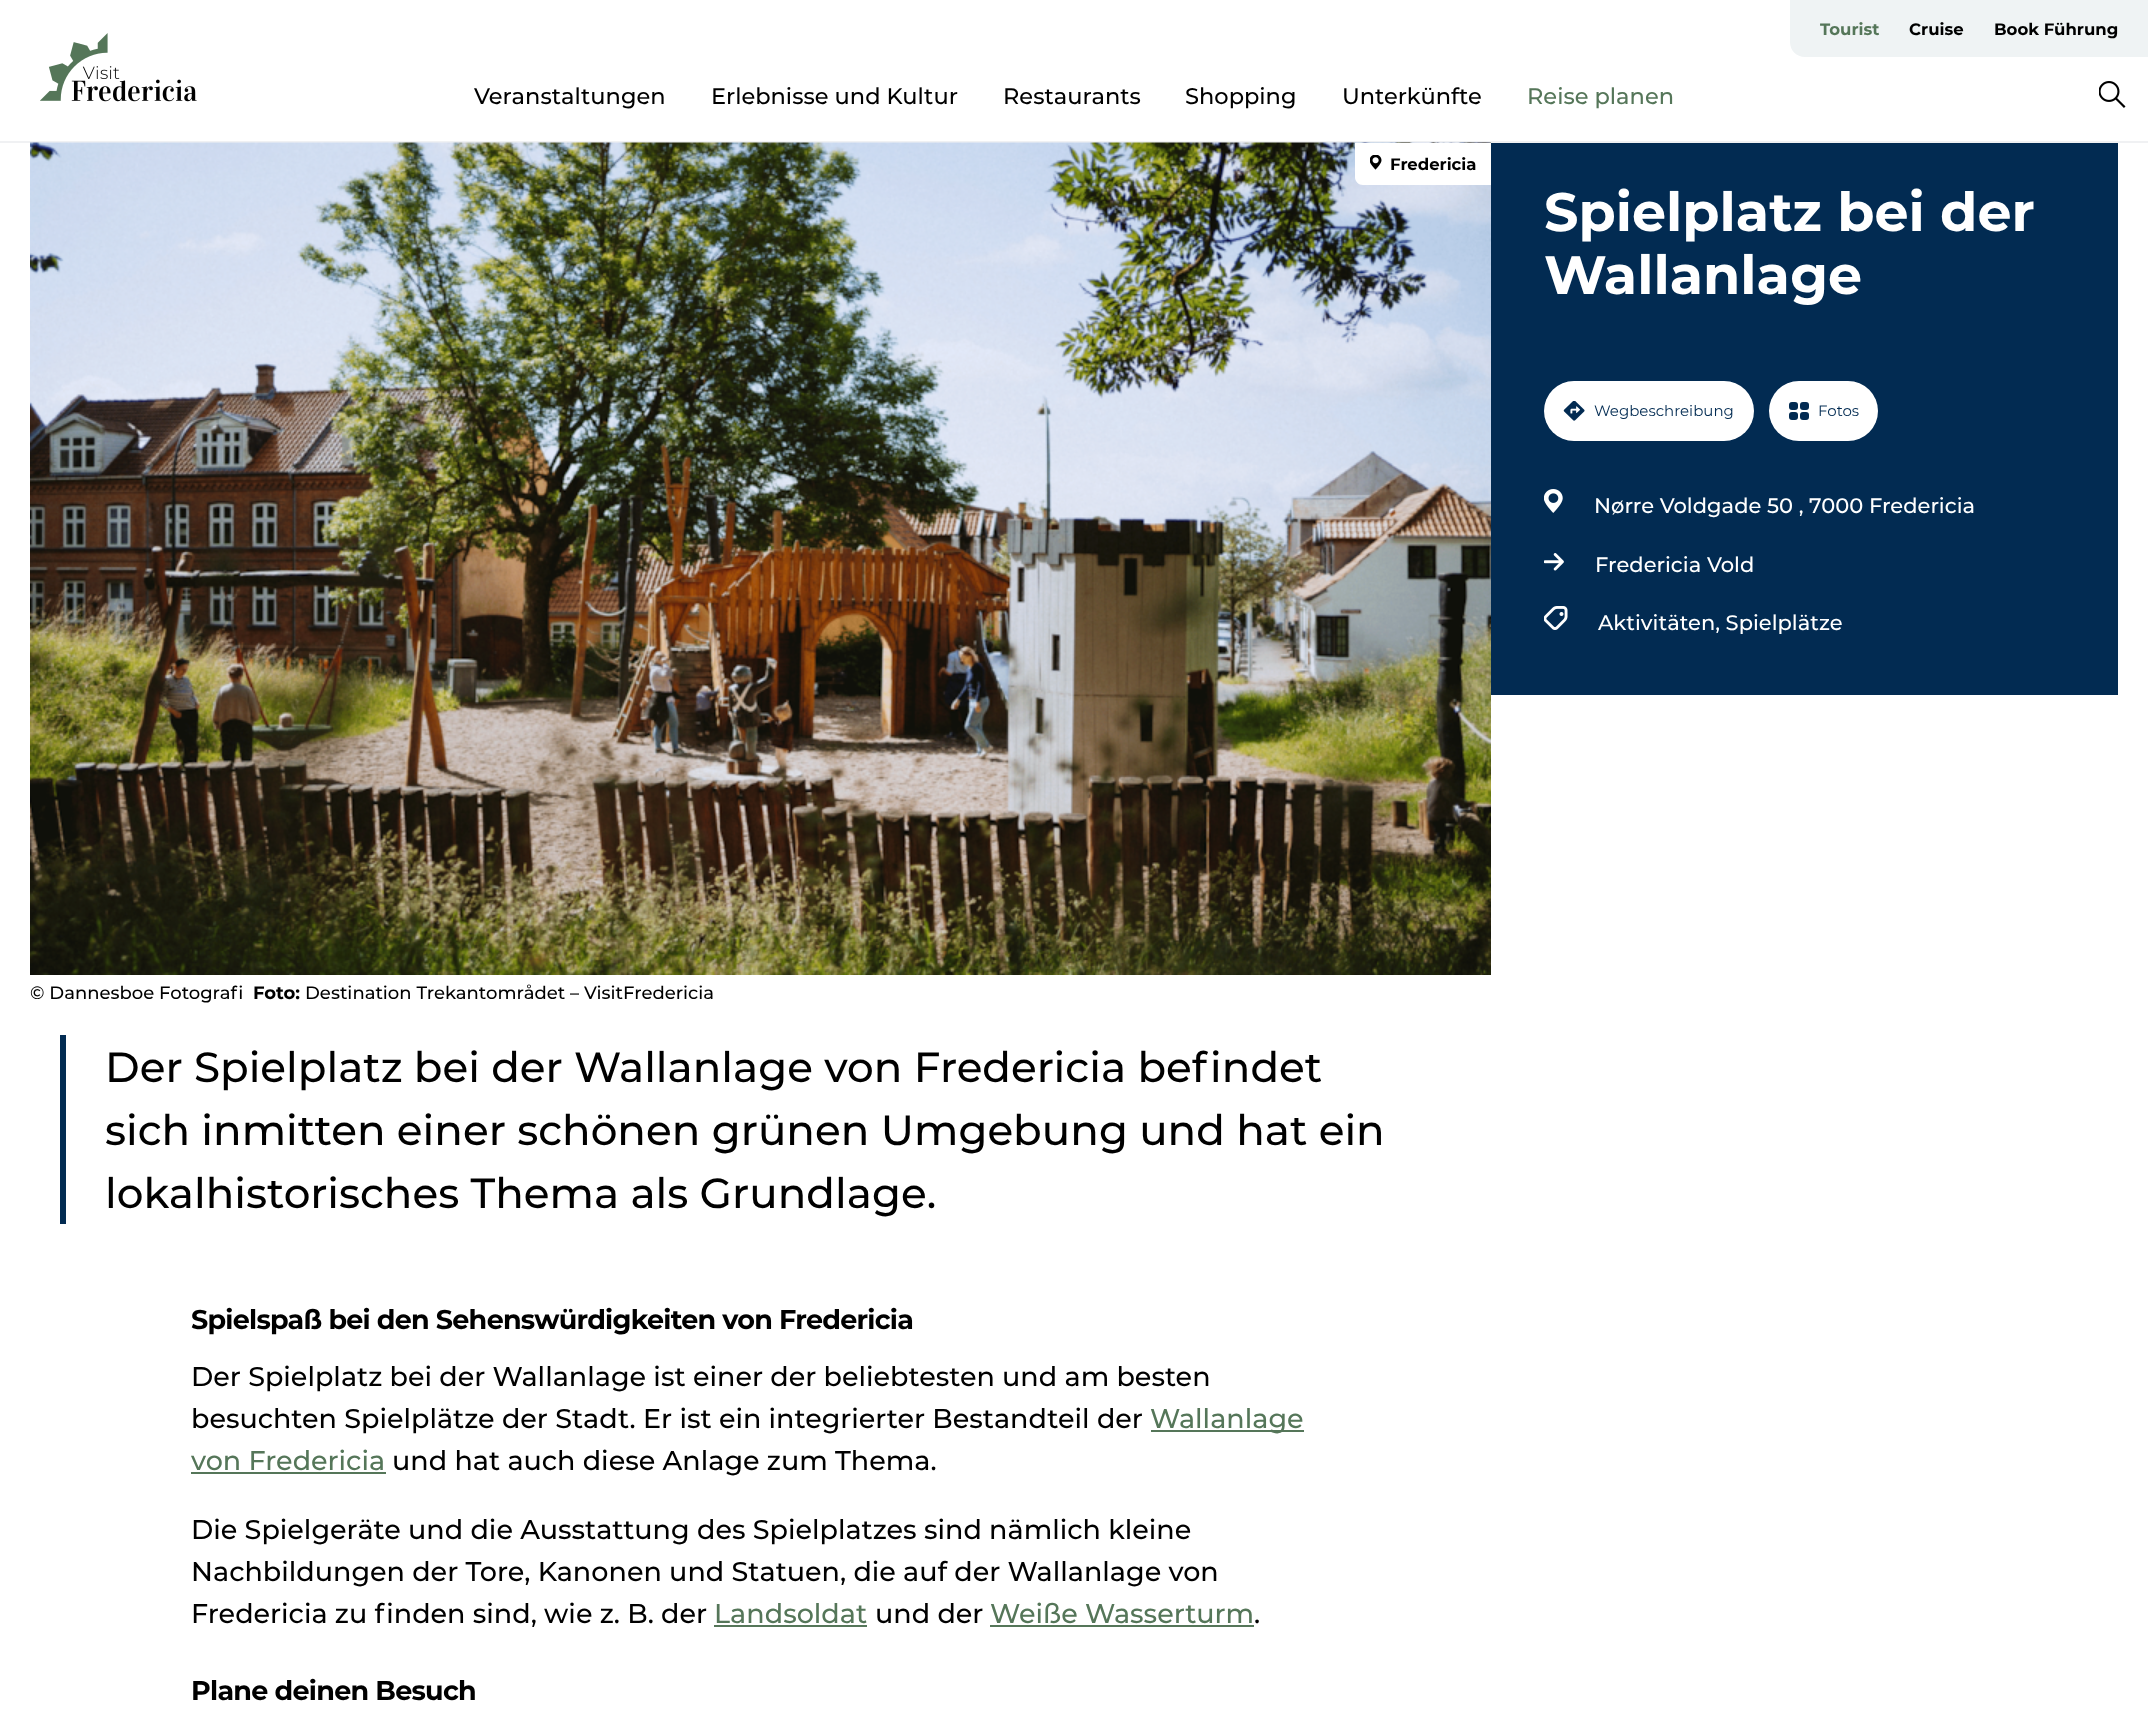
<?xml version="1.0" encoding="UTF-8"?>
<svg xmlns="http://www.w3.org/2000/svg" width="2148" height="1709">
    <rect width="100%" height="100%" fill="#FFFFFF"/>
    <rect x="0" y="141" width="2148" height="2" fill="#F0F1F3"/>
    <image x="40" y="33" width="157" height="69" href="img_01.png"/>
    <path d="M 1790 0 H 2148 V 57 H 1805 C 1796.5 57 1790 50.5 1790 42 Z" fill="#EFF3F4"/>
    <text x="1820" y="35" font-family="Montserrat" font-size="16.5" font-weight="700" fill="#557659">Tourist</text>
    <text x="1909" y="35" font-family="Montserrat" font-size="16.5" font-weight="700" fill="#000000">Cruise</text>
    <text x="1994" y="35" font-family="Montserrat" font-size="16.5" font-weight="700" fill="#000000">Book Führung</text>
    <text x="474" y="104" font-family="Montserrat" font-size="22.5" font-weight="500" fill="#000000">Veranstaltungen</text>
    <text x="711" y="104" font-family="Montserrat" font-size="22.5" font-weight="500" fill="#000000">Erlebnisse und Kultur</text>
    <text x="1003" y="104" font-family="Montserrat" font-size="22.5" font-weight="500" fill="#000000">Restaurants</text>
    <text x="1185" y="104" font-family="Montserrat" font-size="22.5" font-weight="500" fill="#000000">Shopping</text>
    <text x="1342" y="104" font-family="Montserrat" font-size="22.5" font-weight="500" fill="#000000">Unterkünfte</text>
    <text x="1527" y="104" font-family="Montserrat" font-size="22.5" font-weight="500" fill="#557659">Reise planen</text>
    <image x="2099" y="81" width="27" height="27" href="img_02.png"/>
    <image x="30" y="142" width="1461" height="833" href="img_03.png"/>
    <path d="M 1355 143 H 1491 V 185 H 1363 C 1358.5 185 1355 181.5 1355 177 Z" fill="#FFFFFF"/>
    <image x="1370" y="155" width="12" height="15" href="img_04.png"/>
    <text x="1390" y="170" font-family="Montserrat" font-size="16.5" font-weight="700" fill="#000000">Fredericia</text>
    <text x="30" y="999" font-family="Montserrat" font-size="18" font-weight="500" fill="#000000">© Dannesboe Fotografi</text>
    <text x="253" y="999" font-family="Montserrat" font-size="18" font-weight="700" fill="#000000">Foto:</text>
    <text x="305" y="999" font-family="Montserrat" font-size="18" font-weight="500" fill="#000000">Destination Trekantområdet – VisitFredericia</text>
    <rect x="1491" y="143" width="627" height="552" fill="#022B52"/>
    <text font-family="Montserrat" font-size="54" font-weight="700" fill="#FFFFFF">
        <tspan x="1544" y="231">Spielplatz bei der</tspan>
        <tspan x="1544" y="294">Wallanlage</tspan>
    </text>
    <rect x="1544" y="381" width="210" height="60" rx="30" fill="#FFFFFF"/>
    <image x="1563" y="401" width="22" height="20" href="img_05.png"/>
    <text x="1594" y="416" font-family="Montserrat" font-size="15" fill="#022B52">Wegbeschreibung</text>
    <rect x="1769" y="381" width="109" height="60" rx="30" fill="#FFFFFF"/>
    <rect x="1800" y="402" width="9" height="8" rx="3" fill="#022B52"/>
    <rect x="1800" y="412" width="9" height="8" rx="3" fill="#022B52"/>
    <rect x="1789" y="402" width="9" height="8" rx="3" fill="#022B52"/>
    <rect x="1789" y="412" width="9" height="8" rx="3" fill="#022B52"/>
    <text x="1818" y="416" font-family="Montserrat" font-size="15" fill="#022B52">Fotos</text>
    <image x="1544" y="489" width="19" height="24" href="img_06.png"/>
    <text x="1594" y="513" font-family="Montserrat" font-size="21" font-weight="500" fill="#FFFFFF">Nørre Voldgade 50 , 7000 Fredericia</text>
    <image x="1544" y="553" width="20" height="18" href="img_07.png"/>
    <text x="1595" y="572" font-family="Montserrat" font-size="21" font-weight="500" fill="#FFFFFF">Fredericia Vold</text>
    <image x="1544" y="606" width="24" height="24" href="img_08.png"/>
    <text x="1598" y="630" font-family="Montserrat" font-size="21" font-weight="500" fill="#FFFFFF">Aktivitäten, Spielplätze</text>
    <rect x="60" y="1035" width="6" height="189" fill="#022B52"/>
    <text font-family="Montserrat" font-size="42" font-weight="500" fill="#000000">
        <tspan x="105" y="1082">Der Spielplatz bei der Wallanlage von Fredericia befindet</tspan>
        <tspan x="105" y="1145">sich inmitten einer schönen grünen Umgebung und hat ein</tspan>
        <tspan x="105" y="1208">lokalhistorisches Thema als Grundlage.</tspan>
    </text>
    <text x="191" y="1329" font-family="Montserrat" font-size="27" font-weight="700" letter-spacing="-0.75" fill="#000000">Spielspaß bei den Sehenswürdigkeiten von Fredericia</text>
    <text font-family="Montserrat" font-size="27" font-weight="500" fill="#000000">
        <tspan x="191" y="1386">Der Spielplatz bei der Wallanlage ist einer der beliebtesten und am besten</tspan>
        <tspan x="191" y="1428">besuchten Spielplätze der Stadt. Er ist ein integrierter Bestandteil der</tspan>
    </text>
    <rect x="1151" y="1430" width="153" height="2" fill="#557659"/>
    <text x="1150" y="1428" font-family="Montserrat" font-size="27" font-weight="500" fill="#557659">Wallanlage</text>
    <text x="191" y="1470" font-family="Montserrat" font-size="27" font-weight="500" fill="#557659">von Fredericia</text>
    <rect x="191" y="1472" width="195" height="2" fill="#557659"/>
    <text x="392" y="1470" font-family="Montserrat" font-size="27" font-weight="500" fill="#000000">und hat auch diese Anlage zum Thema.</text>
    <text font-family="Montserrat" font-size="27" font-weight="500" fill="#000000">
        <tspan x="191" y="1539">Die Spielgeräte und die Ausstattung des Spielplatzes sind nämlich kleine</tspan>
        <tspan x="191" y="1581">Nachbildungen der Tore, Kanonen und Statuen, die auf der Wallanlage von</tspan>
        <tspan x="191" y="1623">Fredericia zu finden sind, wie z. B. der</tspan>
    </text>
    <text x="714" y="1623" font-family="Montserrat" font-size="27" font-weight="500" fill="#557659">Landsoldat</text>
    <rect x="714" y="1625" width="153" height="2" fill="#557659"/>
    <text x="875" y="1623" font-family="Montserrat" font-size="27" font-weight="500" fill="#000000">und der</text>
    <text x="990" y="1623" font-family="Montserrat" font-size="27" font-weight="500" fill="#557659">Weiße Wasserturm</text>
    <rect x="990" y="1625" width="264" height="2" fill="#557659"/>
    <text x="1254" y="1623" font-family="Montserrat" font-size="27" font-weight="500" fill="#000000">.</text>
    <text x="191" y="1700" font-family="Montserrat" font-size="27" font-weight="700" letter-spacing="-0.75" fill="#000000">Plane deinen Besuch</text>
</svg>
